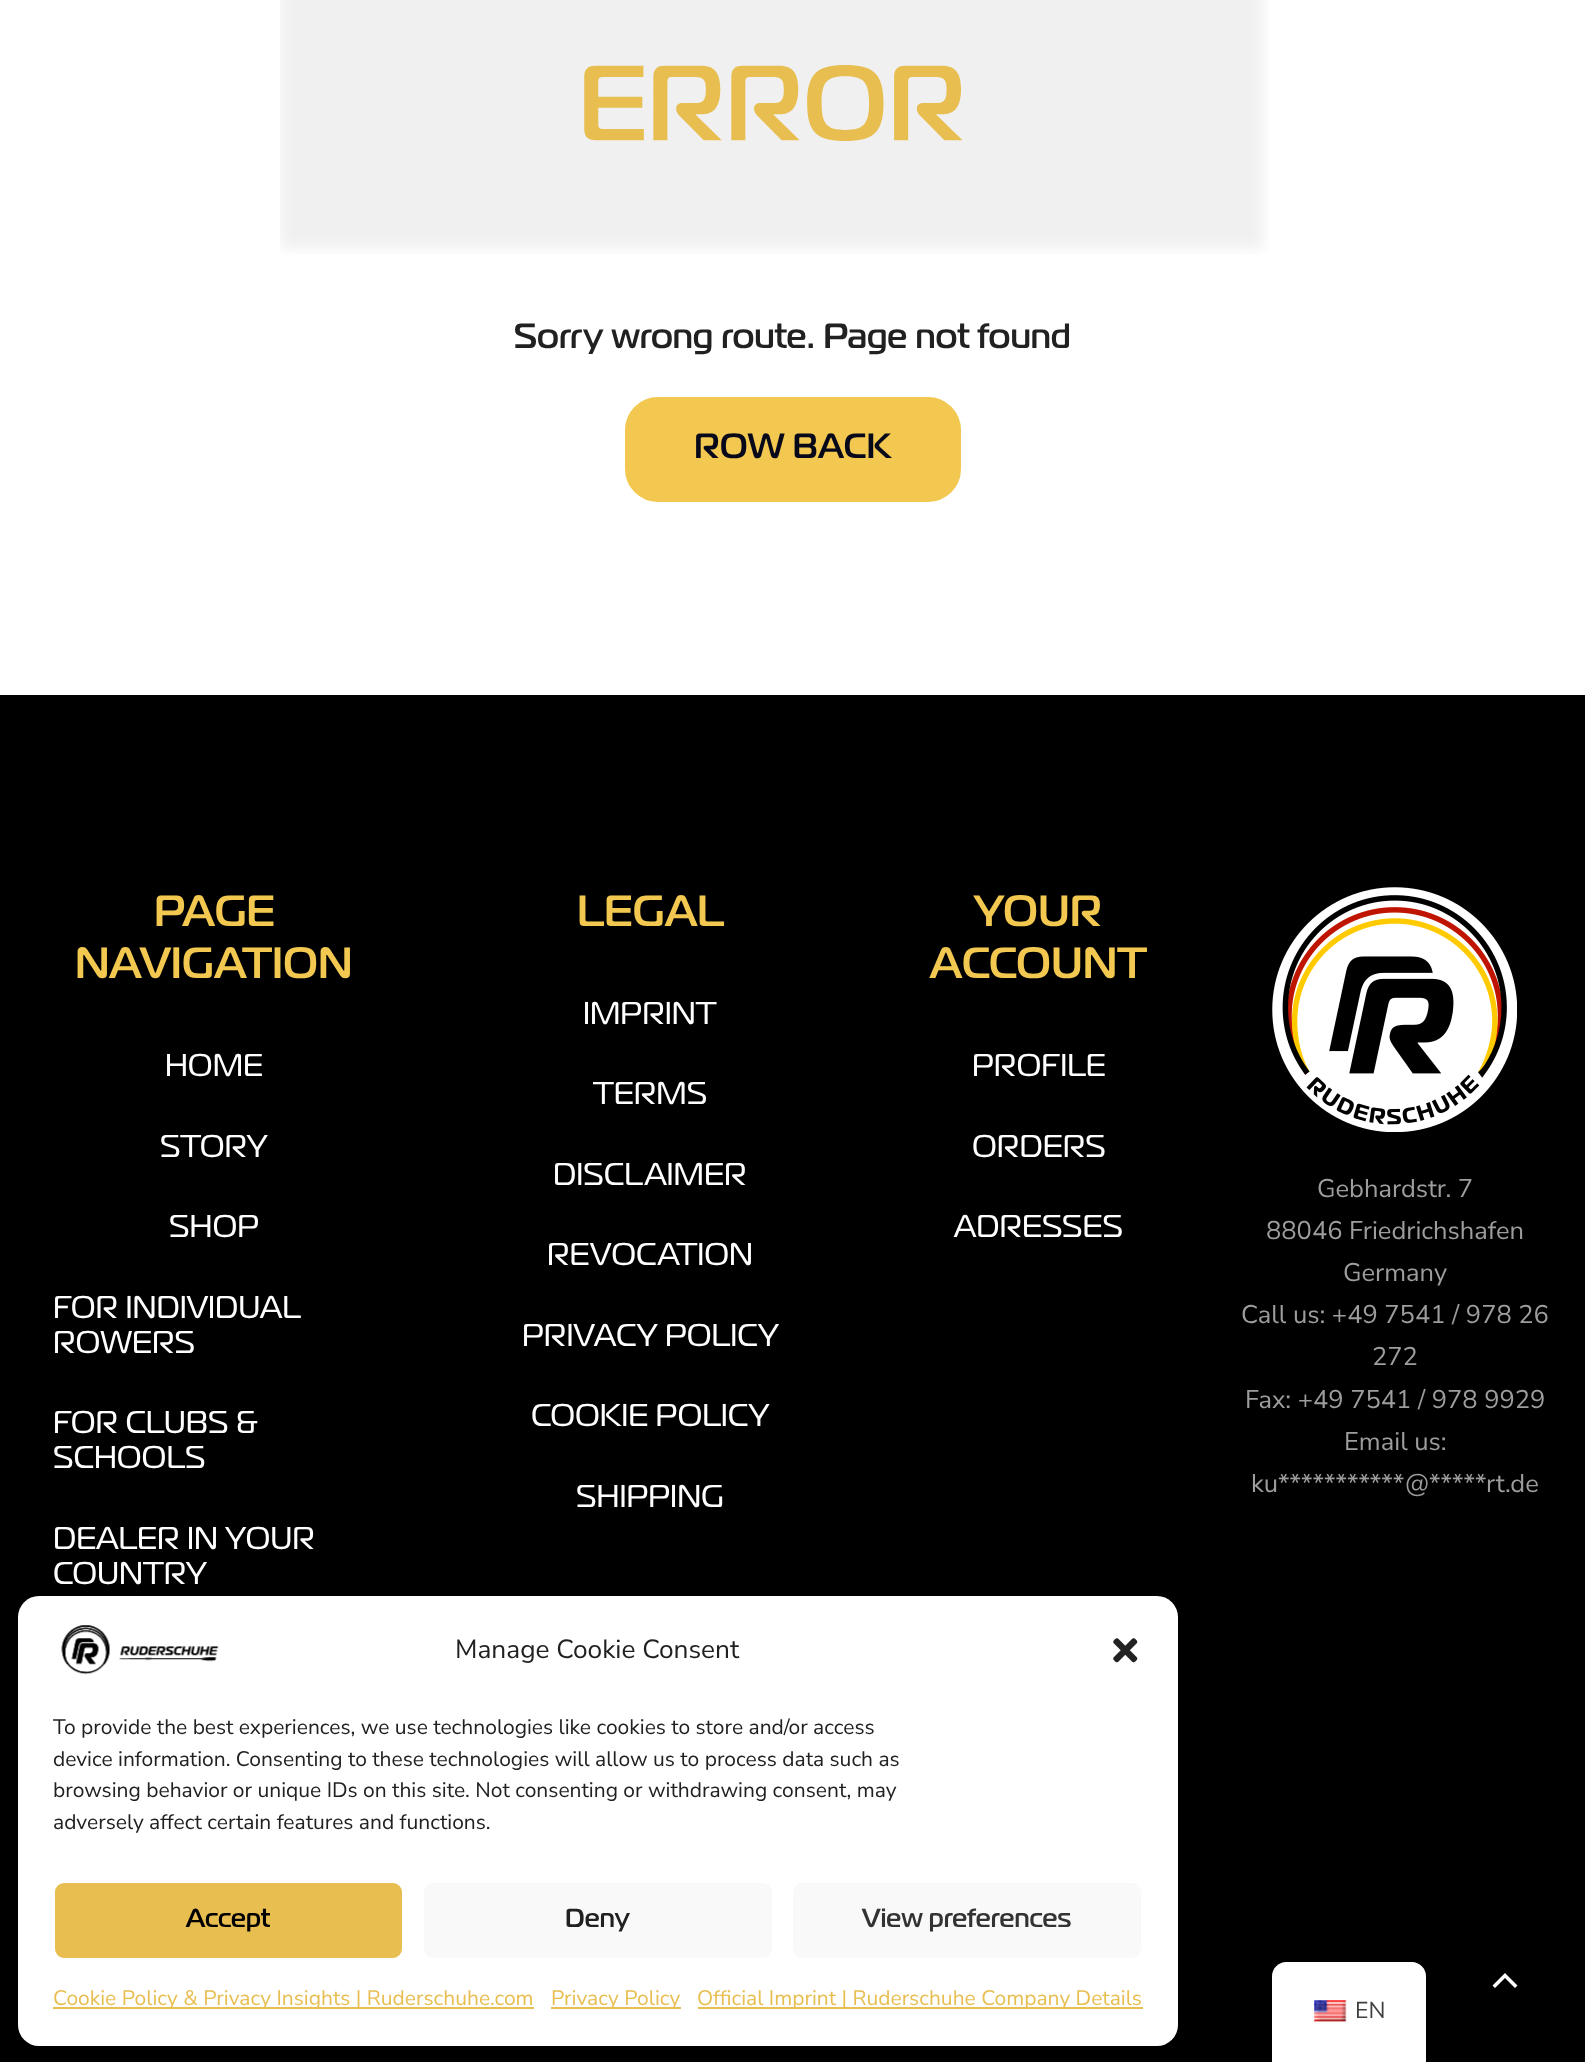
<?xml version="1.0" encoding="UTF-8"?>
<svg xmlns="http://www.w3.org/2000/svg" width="1585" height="2062">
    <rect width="100%" height="100%" fill="#FFFFFF"/>
    <image x="280" y="0" width="989" height="254" href="img_01.png"/>
    <text x="514" y="348" font-family="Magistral" font-size="35" font-weight="500" fill="#212121">Sorry wrong route. Page not found</text>
    <rect x="629.5" y="401.5" width="327" height="96" rx="28.5" fill="#F2C850" stroke="#F2C850" stroke-width="9"/>
    <text x="694" y="458" font-family="Magistral" font-size="35" font-weight="500" fill="#08081B">ROW BACK</text>
    <rect x="0" y="695" width="1585" height="1367" fill="#000000"/>
    <text x="154" y="926" font-family="Magistral" font-size="43.75" font-weight="500" fill="#F2C850">PAGE</text>
    <text x="75" y="978" font-family="Magistral" font-size="43.75" font-weight="500" fill="#F2C850">NAVIGATION</text>
    <text x="165" y="1076" font-family="Magistral" font-size="31.5" fill="#FFFFFF">HOME</text>
    <text x="160" y="1157" font-family="Magistral" font-size="31.5" fill="#FFFFFF">STORY</text>
    <text x="169" y="1237" font-family="Magistral" font-size="31.5" fill="#FFFFFF">SHOP</text>
    <text font-family="Magistral" font-size="31.5" fill="#FFFFFF">
        <tspan x="53" y="1318">FOR INDIVIDUAL</tspan>
        <tspan x="53" y="1353">ROWERS</tspan>
    </text>
    <text font-family="Magistral" font-size="31.5" fill="#FFFFFF">
        <tspan x="53" y="1433">FOR CLUBS &amp;</tspan>
        <tspan x="53" y="1468">SCHOOLS</tspan>
    </text>
    <text font-family="Magistral" font-size="31.5" fill="#FFFFFF">
        <tspan x="53" y="1549">DEALER IN YOUR</tspan>
        <tspan x="53" y="1584">COUNTRY</tspan>
    </text>
    <text x="577" y="926" font-family="Magistral" font-size="43.75" font-weight="500" fill="#F2C850">LEGAL</text>
    <text x="583" y="1024" font-family="Magistral" font-size="31.5" fill="#FFFFFF">IMPRINT</text>
    <text x="593" y="1104" font-family="Magistral" font-size="31.5" fill="#FFFFFF">TERMS</text>
    <text x="553" y="1185" font-family="Magistral" font-size="31.5" fill="#FFFFFF">DISCLAIMER</text>
    <text x="547" y="1265" font-family="Magistral" font-size="31.5" fill="#FFFFFF">REVOCATION</text>
    <text x="522" y="1346" font-family="Magistral" font-size="31.5" fill="#FFFFFF">PRIVACY POLICY</text>
    <text x="531" y="1426" font-family="Magistral" font-size="31.5" fill="#FFFFFF">COOKIE POLICY</text>
    <text x="576" y="1507" font-family="Magistral" font-size="31.5" fill="#FFFFFF">SHIPPING</text>
    <text x="974" y="926" font-family="Magistral" font-size="43.75" font-weight="500" fill="#F2C850">YOUR</text>
    <text x="930" y="978" font-family="Magistral" font-size="43.75" font-weight="500" fill="#F2C850">ACCOUNT</text>
    <text x="972" y="1076" font-family="Magistral" font-size="31.5" fill="#FFFFFF">PROFILE</text>
    <text x="972" y="1157" font-family="Magistral" font-size="31.5" fill="#FFFFFF">ORDERS</text>
    <text x="954" y="1237" font-family="Magistral" font-size="31.5" fill="#FFFFFF">ADRESSES</text>
    <image x="1272" y="887" width="245" height="245" href="img_02.png"/>
    <text x="1317" y="1197" font-family="Nunito Sans" font-size="25.5" font-weight="200" fill="#9D9D9D">Gebhardstr. 7</text>
    <text x="1266" y="1239" font-family="Nunito Sans" font-size="25.5" font-weight="200" fill="#9D9D9D">88046 Friedrichshafen</text>
    <text x="1343" y="1281" font-family="Nunito Sans" font-size="25.5" font-weight="200" fill="#9D9D9D">Germany</text>
    <text x="1241" y="1323" font-family="Nunito Sans" font-size="25.5" font-weight="200" fill="#9D9D9D">Call us: +49 7541 / 978 26</text>
    <text x="1372" y="1365" font-family="Nunito Sans" font-size="25.5" font-weight="200" fill="#9D9D9D">272</text>
    <text x="1245" y="1408" font-family="Nunito Sans" font-size="25.5" font-weight="200" fill="#9D9D9D">Fax: +49 7541 / 978 9929</text>
    <text x="1344" y="1450" font-family="Nunito Sans" font-size="25.5" font-weight="200" fill="#9D9D9D">Email us:</text>
    <text x="1251" y="1492" font-family="Nunito Sans" font-size="25.5" font-weight="200" fill="#9D9D9D">ku***********</text>
    <text x="1405" y="1492" font-family="Nunito Sans" font-size="25.5" font-weight="200" fill="#9D9D9D">@*****</text>
    <text x="1486" y="1492" font-family="Nunito Sans" font-size="25.5" font-weight="200" fill="#9D9D9D">rt.de</text>
    <rect x="18" y="1596" width="1160" height="450" rx="21" fill="#FFFFFF"/>
    <image x="61" y="1625" width="158" height="50" href="img_03.png"/>
    <text x="455" y="1658" font-family="Nunito Sans" font-size="26.25" font-weight="200" fill="#212121">Manage Cookie Consent</text>
    <image x="1113" y="1638" width="25" height="25" href="img_04.png"/>
    <text font-family="Nunito Sans" font-size="21" font-weight="200" fill="#212121">
        <tspan x="53" y="1734">To provide the best experiences, we use technologies like cookies to store and/or access</tspan>
        <tspan x="53" y="1766">device information. Consenting to these technologies will allow us to process data such as</tspan>
        <tspan x="53" y="1797">browsing behavior or unique IDs on this site. Not consenting or withdrawing consent, may</tspan>
        <tspan x="53" y="1829">adversely affect certain features and functions.</tspan>
    </text>
    <rect x="54" y="1882" width="349" height="77" rx="10" fill="#E8BE50" stroke="#FFFFFF" stroke-width="2"/>
    <text x="186" y="1927" font-family="Magistral" font-size="26.25" font-weight="500" fill="#000000">Accept</text>
    <rect x="423" y="1882" width="350" height="77" rx="10" fill="#F9F9F9" stroke="#FFFFFF" stroke-width="2"/>
    <text x="565" y="1927" font-family="Magistral" font-size="26.25" font-weight="500" fill="#212121">Deny</text>
    <rect x="792" y="1882" width="350" height="77" rx="10" fill="#F9F9F9" stroke="#FFFFFF" stroke-width="2"/>
    <text x="862" y="1927" font-family="Magistral" font-size="26.25" font-weight="500" fill="#333333">View preferences</text>
    <rect x="53" y="2007" width="481" height="2" fill="#E8BE50"/>
    <text x="53" y="2005" font-family="Nunito Sans" font-size="21" font-weight="200" fill="#E8BE50">Cookie Policy &amp; Privacy Insights | Ruderschuhe.com</text>
    <rect x="551" y="2007" width="130" height="2" fill="#E8BE50"/>
    <text x="551" y="2005" font-family="Nunito Sans" font-size="21" font-weight="200" fill="#E8BE50">Privacy Policy</text>
    <rect x="698" y="2007" width="445" height="2" fill="#E8BE50"/>
    <text x="697" y="2005" font-family="Nunito Sans" font-size="21" font-weight="200" fill="#E8BE50">Official Imprint | Ruderschuhe Company Details</text>
    <path d="M 1517.5 1985.5 L 1505 1973 L 1492.5 1985.5 L 1495 1988 L 1505 1978 L 1515 1988 Z" fill="#FFFFFF"/>
    <path d="M 1286 1962 H 1412 C 1419.5 1962 1426 1968.5 1426 1976 V 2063 H 1272 V 1976 C 1272 1968.5 1278.5 1962 1286 1962 Z" fill="#FFFFFF"/>
    <image x="1314" y="2000" width="33" height="22" href="img_05.png"/>
    <text x="1355" y="2018" font-family="Nunito Sans" font-size="23" font-weight="200" fill="#404040">EN</text>
</svg>
